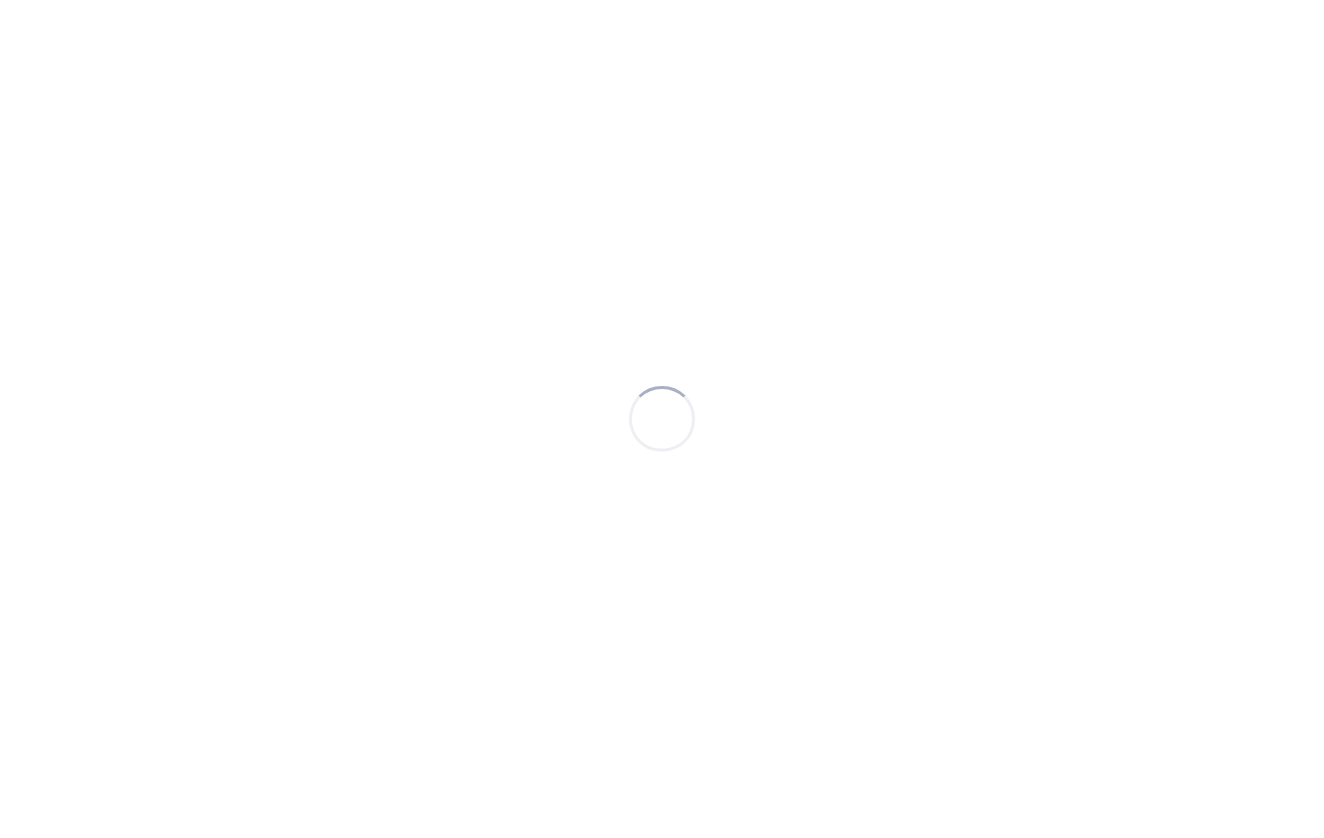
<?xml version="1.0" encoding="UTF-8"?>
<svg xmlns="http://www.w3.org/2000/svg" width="1324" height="838">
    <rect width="100%" height="100%" fill="#FFFFFF"/>
    <path d="M 639.5 396.5 C 652 384.5 672 384.5 684.5 396.5" fill="none" stroke="#AAB0C4" stroke-width="3"/>
    <path d="M 684.5 396.5 C 690 402.5 693.5 410.5 693.5 419 C 693.5 456.5 638.5 462 631 425 C 629 415 632.5 404 639.5 396.5" fill="none" stroke="#AAB0C4" stroke-opacity="0.2" stroke-width="3"/>
</svg>
